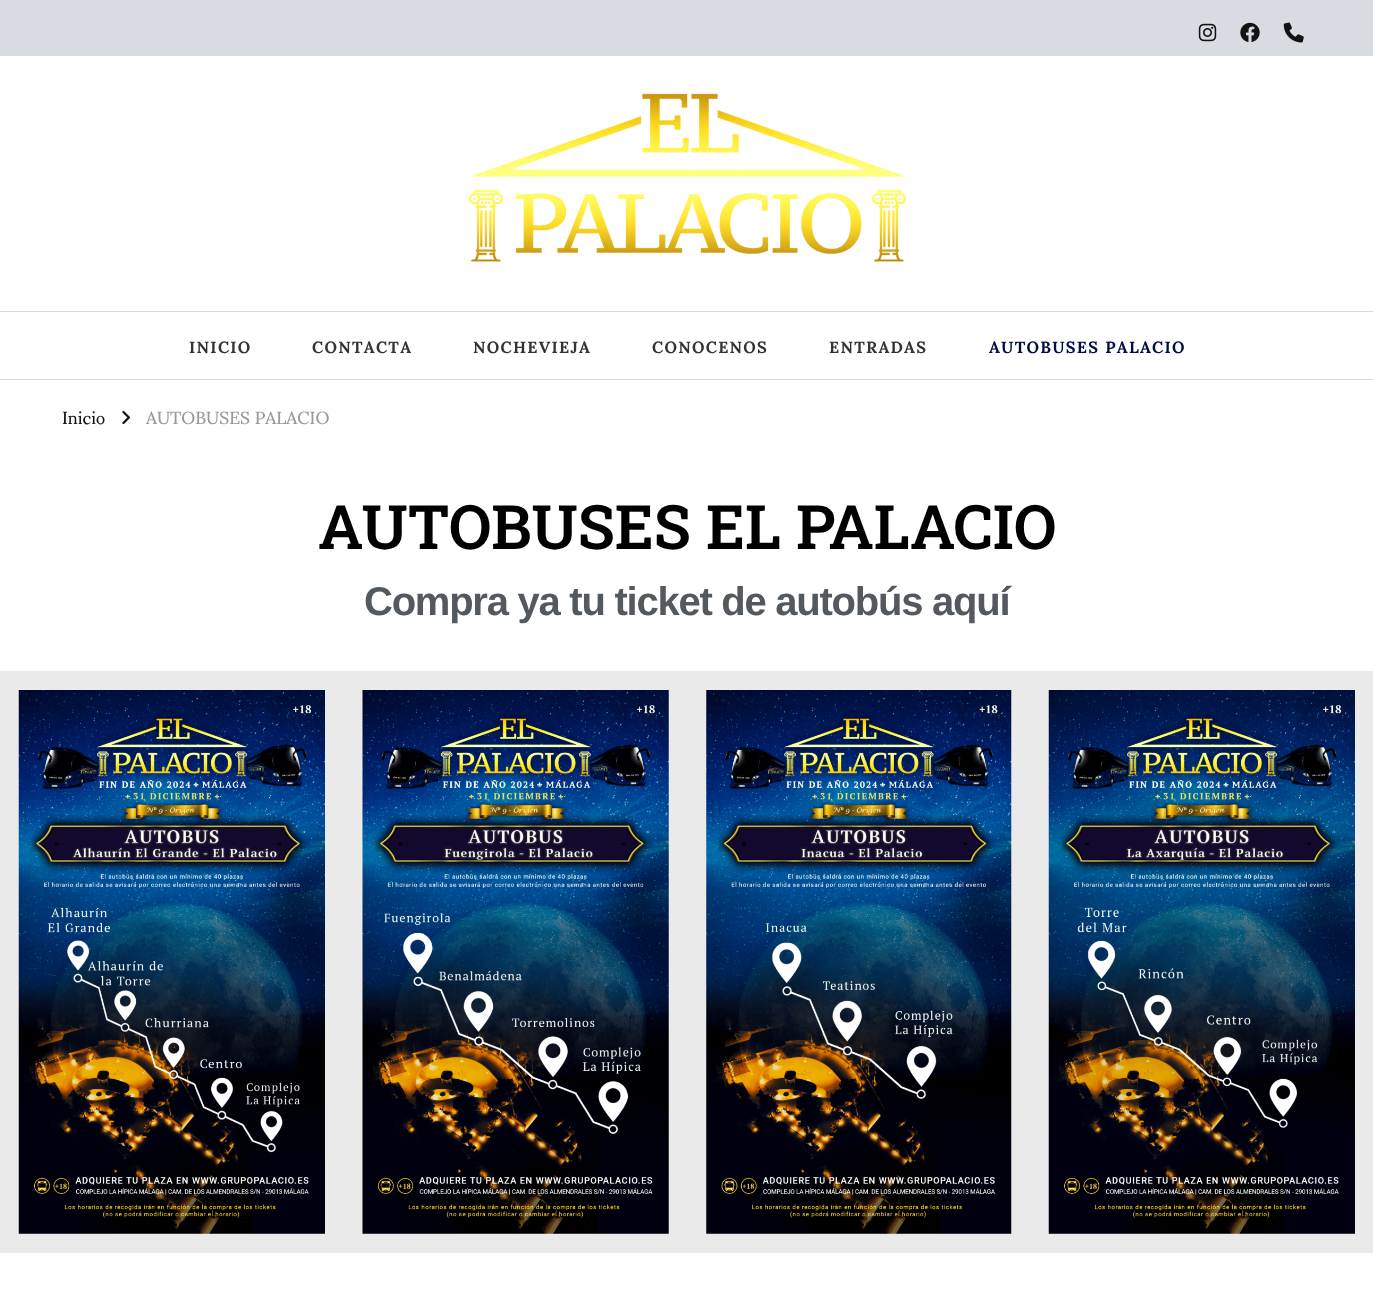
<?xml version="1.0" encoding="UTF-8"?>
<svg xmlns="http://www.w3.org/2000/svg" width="1373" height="1300">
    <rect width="100%" height="100%" fill="#FFFFFF"/>
    <rect x="0" y="0" width="1373" height="56" fill="#D9DBE3"/>
    <image x="1198" y="23" width="19" height="19" href="img_01.png"/>
    <image x="1240" y="22" width="20" height="20" href="img_02.png"/>
    <image x="1283" y="22" width="21" height="21" href="img_03.png"/>
    <image x="468" y="93" width="439" height="169" href="img_04.png"/>
    <rect x="0" y="311" width="1373" height="1" fill="#D9DBE3"/>
    <rect x="0" y="379" width="1373" height="1" fill="#D9DBE3"/>
    <text x="189" y="353" font-family="Sumana" font-size="16.25" font-weight="700" letter-spacing="1.25" fill="#333333">INICIO</text>
    <text x="312" y="353" font-family="Sumana" font-size="16.25" font-weight="700" letter-spacing="1.25" fill="#333333">CONTACTA</text>
    <text x="473" y="353" font-family="Sumana" font-size="16.25" font-weight="700" letter-spacing="1.25" fill="#333333">NOCHEVIEJA</text>
    <text x="652" y="353" font-family="Sumana" font-size="16.25" font-weight="700" letter-spacing="1.25" fill="#333333">CONOCENOS</text>
    <text x="829" y="353" font-family="Sumana" font-size="16.25" font-weight="700" letter-spacing="1.25" fill="#333333">ENTRADAS</text>
    <text x="989" y="353" font-family="Sumana" font-size="16.25" font-weight="700" letter-spacing="1.25" fill="#000E44">AUTOBUSES PALACIO</text>
    <text x="62" y="424" font-family="Sumana" font-size="17.5" fill="#121212">Inicio</text>
    <image x="122" y="410" width="8" height="14" href="img_05.png"/>
    <text x="146" y="424" font-family="Sumana" font-size="17.5" fill="#999999">AUTOBUSES PALACIO</text>
    <text x="318" y="549" font-family="Roboto Slab" font-size="61.25" font-weight="600" fill="#000000">AUTOBUSES EL PALACIO</text>
    <text x="364" y="615" font-family="Liberation Sans" font-size="40" font-weight="700" letter-spacing="-1.25" fill="#54595F">Compra ya tu ticket de autobús aquí</text>
    <rect x="0" y="671" width="1373" height="582" fill="#EAEAEA"/>
    <image x="18" y="690" width="307" height="544" href="img_06.png"/>
    <image x="362" y="690" width="307" height="544" href="img_07.png"/>
    <image x="706" y="690" width="306" height="544" href="img_08.png"/>
    <image x="1048" y="690" width="307" height="544" href="img_09.png"/>
</svg>
